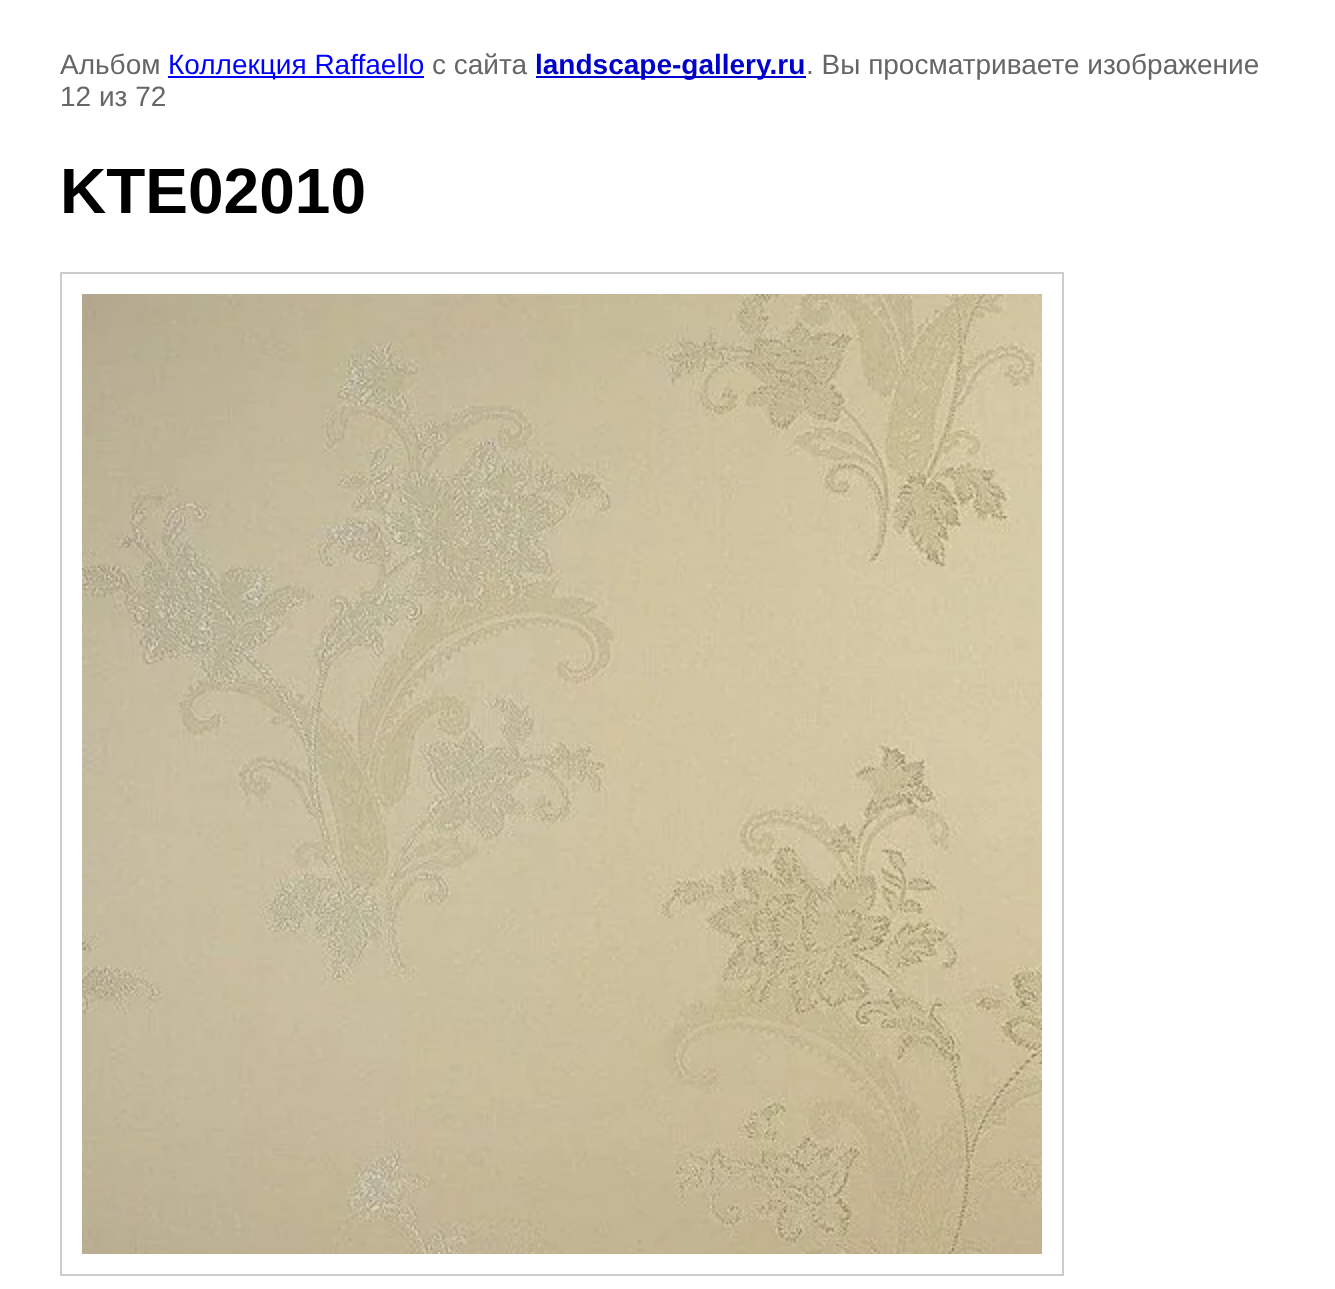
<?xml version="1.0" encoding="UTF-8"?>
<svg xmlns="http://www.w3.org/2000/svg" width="1335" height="1289">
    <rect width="100%" height="100%" fill="#FFFFFF"/>
    <text x="60" y="74" font-family="Liberation Sans" font-size="28" fill="#666666">Альбом</text>
    <rect x="168" y="76" width="256" height="2" fill="#0000FF"/>
    <text x="168" y="74" font-family="Liberation Sans" font-size="28" fill="#0000FF">Коллекция Raffaello</text>
    <text x="432" y="74" font-family="Liberation Sans" font-size="28" fill="#666666">с сайта</text>
    <rect x="536" y="76" width="270" height="2" fill="#0000CC"/>
    <text x="535" y="74" font-family="Liberation Sans" font-size="28" font-weight="700" fill="#0000CC">landscape-gallery.ru</text>
    <text x="806" y="74" font-family="Liberation Sans" font-size="28" fill="#666666">. Вы просматриваете изображение</text>
    <text x="60" y="106" font-family="Liberation Sans" font-size="28" fill="#666666">12 из 72</text>
    <text x="60" y="213" font-family="Liberation Sans" font-size="64" font-weight="700" fill="#000000">KTE02010</text>
    <rect x="61" y="273" width="1002" height="1002" fill="none" stroke="#CCCCCC" stroke-width="2"/>
    <image x="82" y="294" width="960" height="960" href="img_01.png"/>
</svg>
